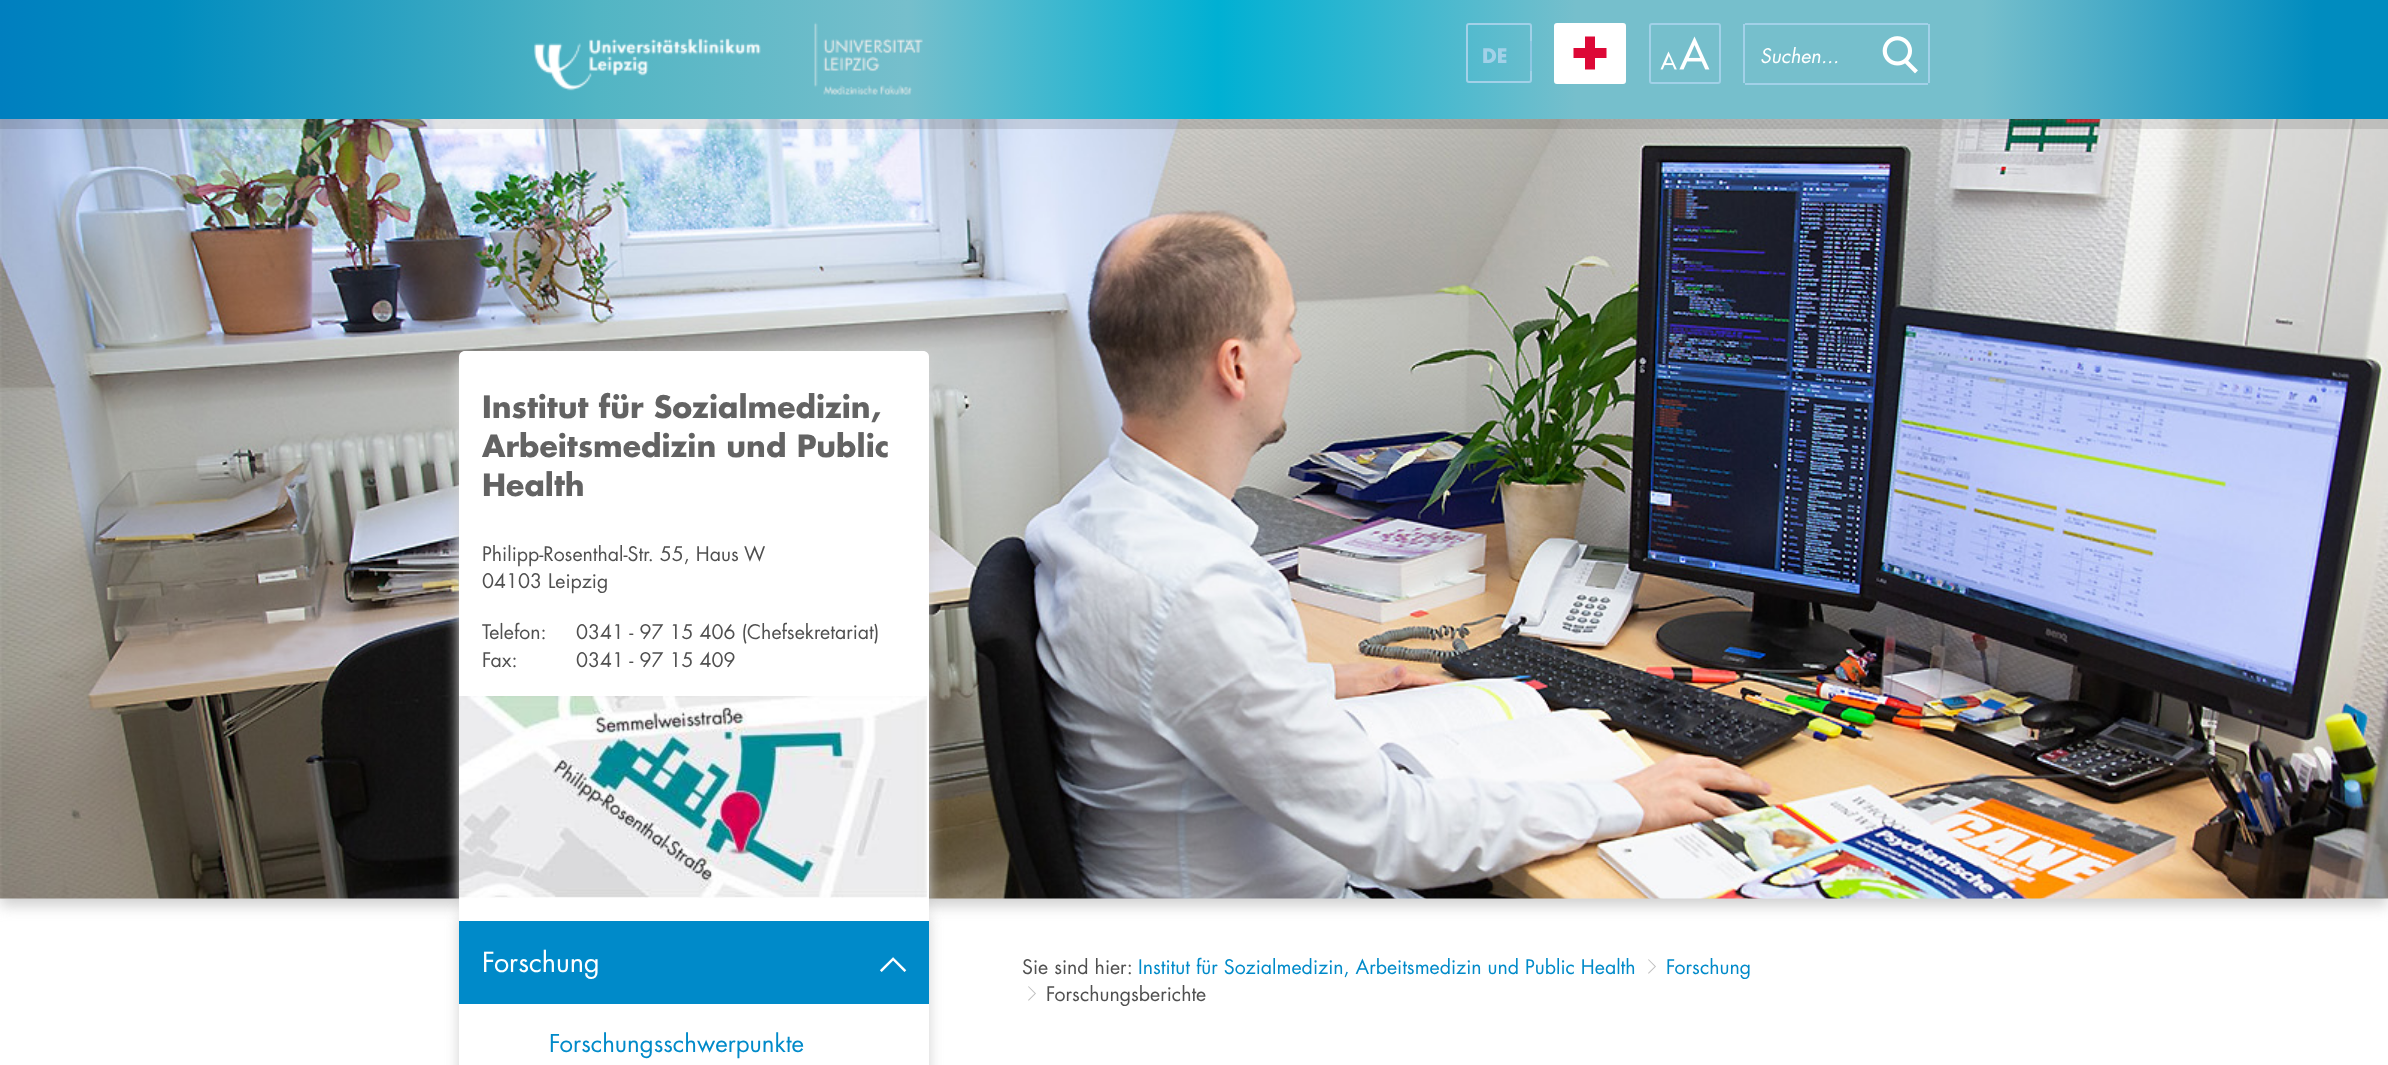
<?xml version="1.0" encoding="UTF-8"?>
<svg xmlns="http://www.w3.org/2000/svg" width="2388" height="1065">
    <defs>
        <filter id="blur1" x="-50%" y="-200%" width="200%" height="500%"><feGaussianBlur stdDeviation="7"/></filter>
        <linearGradient id="g1" gradientUnits="userSpaceOnUse" x1="0" y1="59" x2="2388" y2="59"><stop offset="0" stop-color="#007FBF"/><stop offset="0.07" stop-color="#008CBF"/><stop offset="0.25" stop-color="#52B5C4"/><stop offset="0.38" stop-color="#76BFCC"/><stop offset="0.51" stop-color="#00B0D3"/><stop offset="0.66" stop-color="#76BFCC"/><stop offset="0.83" stop-color="#76BFCC"/><stop offset="0.97" stop-color="#008CBF"/></linearGradient>
    </defs>
    <rect width="100%" height="100%" fill="#FFFFFF"/>
    <rect x="0" y="126" width="2388" height="780" fill="#D0D0D0" filter="url(#blur1)"/>
    <image x="0" y="119" width="2388" height="780" href="img_04.png"/>
    <rect x="0" y="119" width="2388" height="10" fill="#000000" fill-opacity="0.1"/>
    <rect x="0" y="0" width="2388" height="119" fill="url(#g1)"/>
    <image x="534" y="22" width="389" height="73" href="img_01.png"/>
    <rect x="1467" y="24" width="64" height="58" rx="2" fill="none" stroke="#A2D1E8" stroke-width="2"/>
    <text x="1482" y="63" font-family="Futura" font-size="19.5" font-weight="700" fill="#A2D1E8">DE</text>
    <rect x="1530" y="41" width="2" height="30" fill="#8FC7E3"/>
    <rect x="1555" y="24" width="70" height="59" rx="2" fill="none" stroke="#FFFFFF" stroke-width="2"/>
    <rect x="1556" y="25" width="68" height="57" fill="#FFFFFF"/>
    <path d="M 1573.5 58 V 48 H 1585 V 36.5 H 1595 V 48 H 1606.5 V 58 H 1595 V 69.5 H 1585 V 58 Z" fill="#DD0836"/>
    <rect x="1650" y="24" width="70" height="59" rx="2" fill="none" stroke="#A2D1E8" stroke-width="2"/>
    <image x="1660" y="36" width="50" height="34" href="img_02.png"/>
    <rect x="1745" y="23" width="183" height="2" fill="#A2D1E8"/>
    <rect x="1745" y="83" width="183" height="2" fill="#A2D1E8"/>
    <rect x="1743" y="24" width="2" height="59" fill="#A2D1E8"/>
    <text x="1760" y="63" font-family="'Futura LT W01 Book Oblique'" font-size="19.5" fill="#FFFFFF">Suchen...</text>
    <rect x="1928" y="24" width="2" height="59" fill="#A2D1E8"/>
    <image x="1882" y="36" width="36" height="38" href="img_03.png"/>
    <rect x="459" y="360" width="470" height="548" rx="6" fill="#D0D0D0" filter="url(#blur1)"/>
    <path d="M 465 351 H 923 C 926.5 351 929 353.5 929 357 V 899 H 459 V 357 C 459 353.5 461.5 351 465 351 Z" fill="#FFFFFF"/>
    <text font-family="Futura" font-size="30" font-weight="700" fill="#636363">
        <tspan x="482" y="418">Institut für Sozialmedizin,</tspan>
        <tspan x="482" y="457">Arbeitsmedizin und Public</tspan>
        <tspan x="482" y="496">Health</tspan>
    </text>
    <text font-family="Futura" font-size="19.5" fill="#505050">
        <tspan x="482" y="561">Philipp-Rosenthal-Str. 55, Haus W</tspan>
        <tspan x="482" y="588">04103 Leipzig</tspan>
    </text>
    <text x="482" y="639" font-family="Futura" font-size="19.5" fill="#505050">Telefon:</text>
    <text x="576" y="639" font-family="Futura" font-size="19.5" fill="#505050">0341 - 97 15 406 (Chefsekretariat)</text>
    <text x="482" y="667" font-family="Futura" font-size="19.5" fill="#505050">Fax:</text>
    <text x="576" y="667" font-family="Futura" font-size="19.5" fill="#505050">0341 - 97 15 409</text>
    <image x="459" y="696" width="468" height="202" href="img_05.png"/>
    <rect x="459" y="914" width="470" height="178" rx="6" fill="#D0D0D0" filter="url(#blur1)"/>
    <rect x="459" y="899" width="470" height="166" fill="#FFFFFF"/>
    <rect x="459" y="921" width="470" height="83" fill="#008AC9"/>
    <text x="482" y="972" font-family="Futura" font-size="27" fill="#FFFFFF">Forschung</text>
    <text x="880" y="969" font-family="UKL" font-size="15" fill="#FFFFFF">7</text>
    <text x="549" y="1052" font-family="Futura" font-size="24" fill="#008AC9">Forschungsschwerpunkte</text>
    <text x="1022" y="974" font-family="Futura" font-size="19.5" fill="#505050">Sie sind hier:</text>
    <text x="1138" y="974" font-family="Futura" font-size="19.5" fill="#008AC9">Institut für Sozialmedizin, Arbeitsmedizin und Public Health</text>
    <text x="1648" y="971" font-family="UKL" font-size="15" fill="#C0C0C0">2</text>
    <text x="1666" y="974" font-family="Futura" font-size="19.5" fill="#008AC9">Forschung</text>
    <text x="1028" y="998" font-family="UKL" font-size="15" fill="#C0C0C0">2</text>
    <text x="1046" y="1001" font-family="Futura" font-size="19.5" fill="#505050">Forschungsberichte</text>
</svg>
